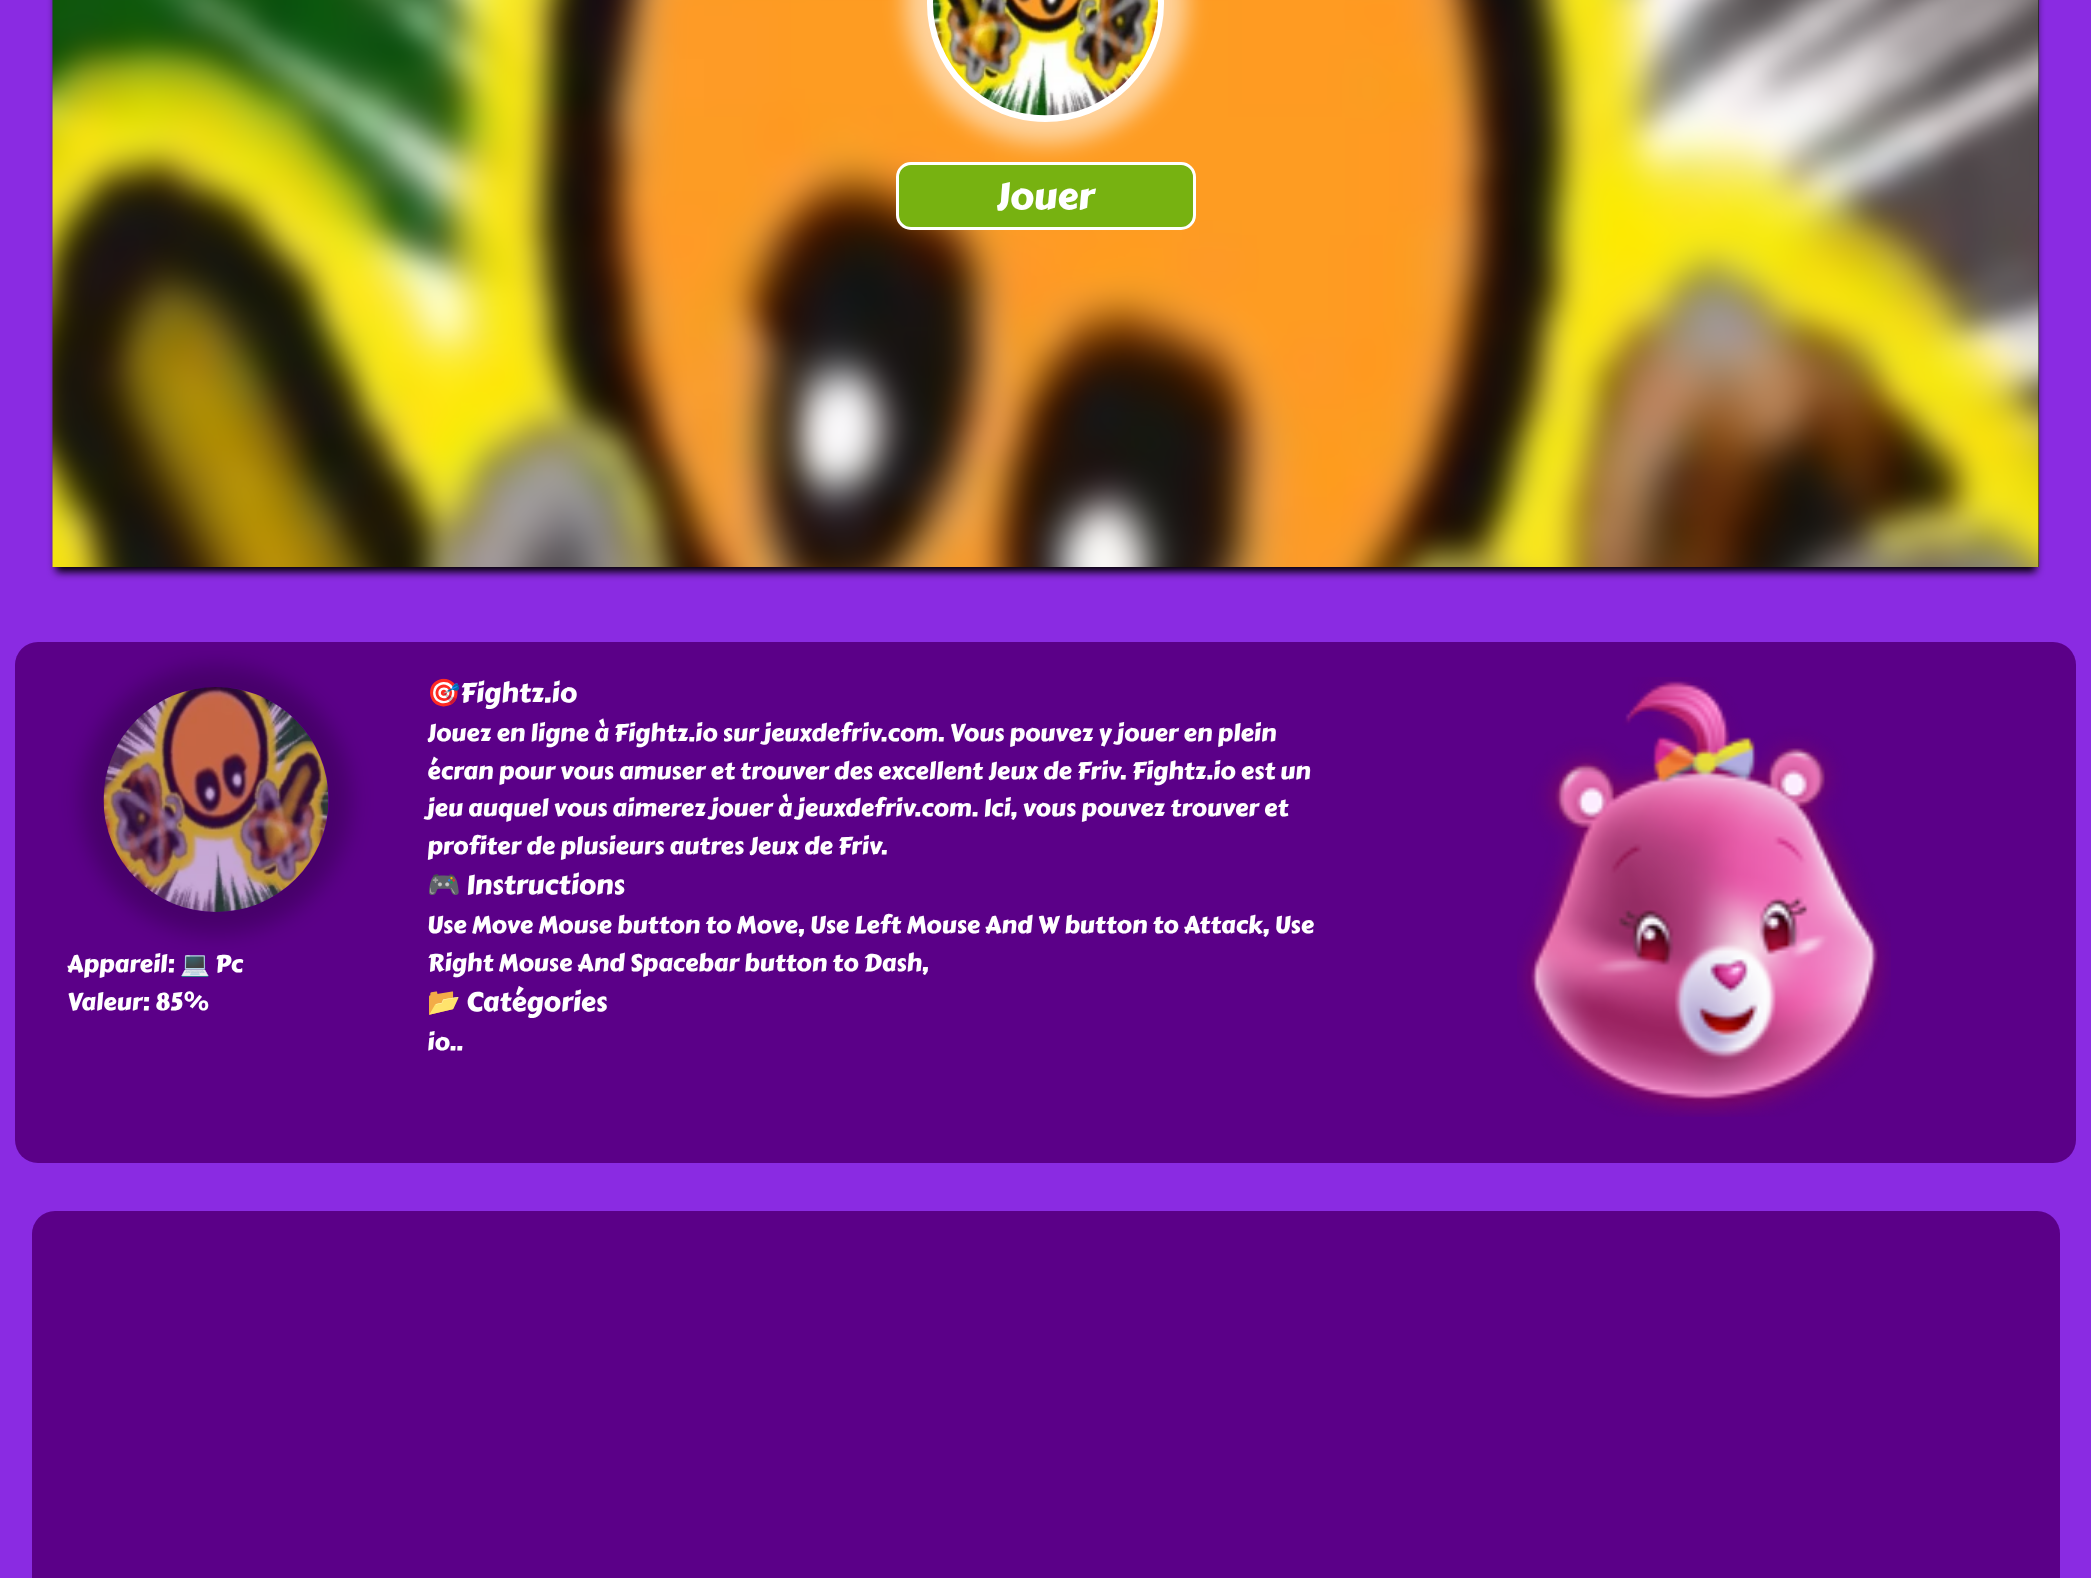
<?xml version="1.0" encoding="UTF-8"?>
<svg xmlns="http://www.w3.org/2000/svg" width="2091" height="1578">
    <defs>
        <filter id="blur1" x="-50%" y="-200%" width="200%" height="500%"><feGaussianBlur stdDeviation="4"/></filter>
        <filter id="blur2" x="-50%" y="-200%" width="200%" height="500%"><feGaussianBlur stdDeviation="11"/></filter>
        <clipPath id="clip1"><path d="M 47 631 H 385 V 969 H 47 Z M 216.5 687 C 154.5 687 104 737.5 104 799.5 C 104 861.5 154.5 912 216.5 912 C 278.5 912 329 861.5 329 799.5 C 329 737.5 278.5 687 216.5 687 Z" clip-rule="evenodd"/></clipPath>
    </defs>
    <rect width="100%" height="100%" fill="#8A2BE2"/>
    <rect x="56" y="-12" width="1980" height="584" fill="#000000" filter="url(#blur1)"/>
    <rect x="2038" y="0" width="1" height="567" fill="#000000"/>
    <image x="52" y="0" width="1987" height="567" href="img_01.png"/>
    <rect x="905" y="-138" width="282" height="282" rx="141" fill="#FFFFFF" fill-opacity="0.55" filter="url(#blur2)"/>
    <circle cx="1045.5" cy="3.5" r="115.5" fill="#FFFFFF" stroke="#FFFFFF" stroke-width="6"/>
    <image x="933" y="0" width="225" height="116" href="img_02.png"/>
    <rect x="897.5" y="163.5" width="297" height="65" rx="13.5" fill="#77B211" stroke="#FFFFFF" stroke-width="3"/>
    <text x="996" y="209" font-family="Carter One" font-size="37.5" fill="#FFFFFF">Jouer</text>
    <rect x="15" y="642" width="2061" height="521" rx="23" fill="#5B0088"/>
    <g clip-path="url(#clip1)">
        <rect x="81" y="665" width="270" height="270" rx="135" fill="#000000" fill-opacity="0.22" filter="url(#blur2)"/>
    </g>
    <image x="103" y="687" width="226" height="225" href="img_03.png"/>
    <text x="67" y="972" font-family="Carter One" font-size="24" fill="#FFFFFF">Appareil:</text>
    <text x="180" y="972" font-family="Noto Color Emoji" font-size="24" fill="#FFFFFF">💻</text>
    <text x="215" y="972" font-family="Carter One" font-size="24" fill="#FFFFFF">Pc</text>
    <text x="67" y="1010" font-family="Carter One" font-size="24" fill="#FFFFFF">Valeur: 85%</text>
    <text x="427" y="702" font-family="Noto Color Emoji" font-size="27" fill="#FFFFFF">🎯</text>
    <text x="460" y="702" font-family="Carter One" font-size="27" fill="#FFFFFF">Fightz.io</text>
    <text font-family="Carter One" font-size="24" fill="#FFFFFF">
        <tspan x="427" y="741">Jouez en ligne à Fightz.io sur jeuxdefriv.com. Vous pouvez y jouer en plein</tspan>
        <tspan x="427" y="779">écran pour vous amuser et trouver des excellent Jeux de Friv. Fightz.io est un</tspan>
        <tspan x="427" y="816">jeu auquel vous aimerez jouer à jeuxdefriv.com. Ici, vous pouvez trouver et</tspan>
        <tspan x="427" y="854">profiter de plusieurs autres Jeux de Friv.</tspan>
    </text>
    <text x="427" y="894" font-family="Noto Color Emoji" font-size="27" fill="#FFFFFF">🎮</text>
    <text x="466" y="894" font-family="Carter One" font-size="27" fill="#FFFFFF">Instructions</text>
    <text font-family="Carter One" font-size="24" fill="#FFFFFF">
        <tspan x="427" y="933">Use Move Mouse button to Move, Use Left Mouse And W button to Attack, Use</tspan>
        <tspan x="427" y="971">Right Mouse And Spacebar button to Dash,</tspan>
    </text>
    <text x="427" y="1011" font-family="Noto Color Emoji" font-size="27" fill="#FFFFFF">📂</text>
    <text x="466" y="1011" font-family="Carter One" font-size="27" fill="#FFFFFF">Catégories</text>
    <text x="427" y="1050" font-family="Carter One" font-size="24" fill="#FFFFFF">io..</text>
    <image x="1517" y="677" width="374" height="440" href="img_04.png"/>
    <rect x="32" y="1211" width="2028" height="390" rx="23" fill="#5B0088"/>
</svg>
